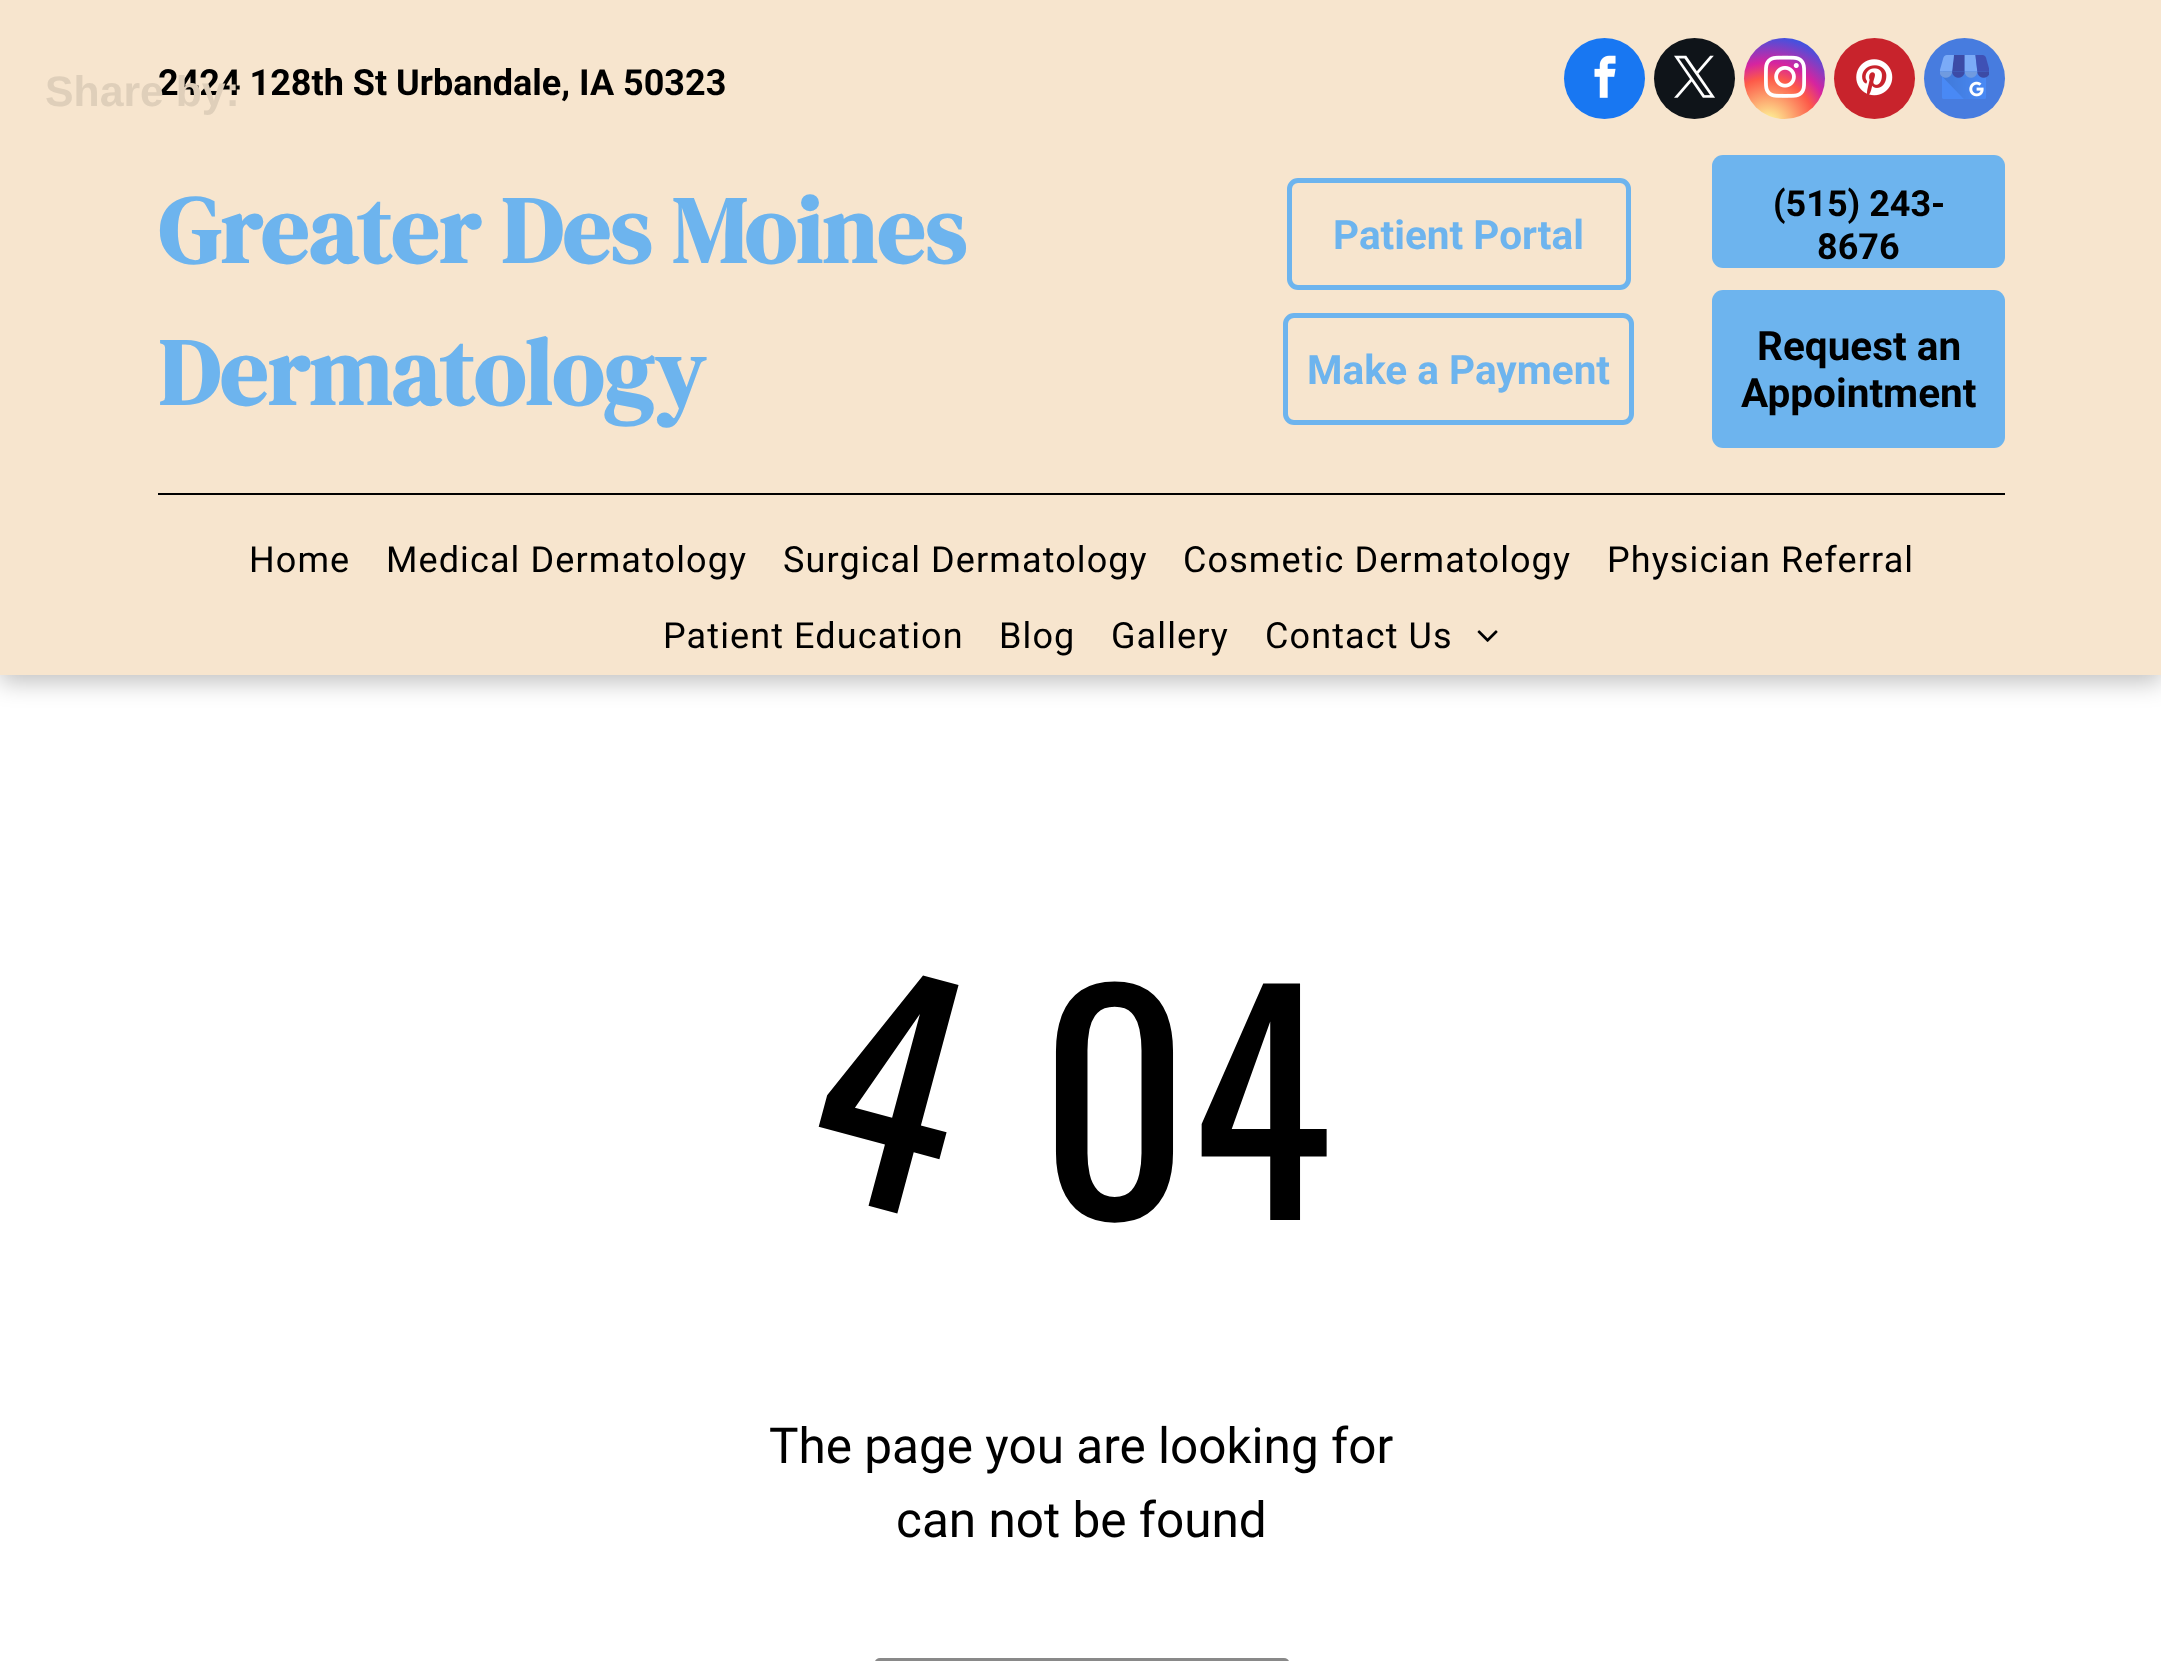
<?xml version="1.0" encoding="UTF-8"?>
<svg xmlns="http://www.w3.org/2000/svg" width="2161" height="1661">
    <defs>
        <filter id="blur1" x="-50%" y="-200%" width="200%" height="500%"><feGaussianBlur stdDeviation="12.5"/></filter>
        <radialGradient id="g1" gradientUnits="userSpaceOnUse" cx="1768" cy="125" r="104"><stop offset="0" stop-color="#FDF497"/><stop offset="0.05" stop-color="#FDF497"/><stop offset="0.45" stop-color="#FD5949"/><stop offset="0.6" stop-color="#D6249F"/><stop offset="0.9" stop-color="#285AEB"/></radialGradient>
    </defs>
    <rect width="100%" height="100%" fill="#FFFFFF"/>
    <rect x="0" y="7" width="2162" height="675" fill="#000000" fill-opacity="0.25" filter="url(#blur1)"/>
    <rect x="0" y="0" width="2161" height="675" fill="#F7E5CE"/>
    <text x="158" y="95" font-family="Roboto" font-size="36" font-weight="700" fill="#000000">2424 128th St Urbandale, IA 50323</text>
    <text x="45" y="106" font-family="Liberation Sans" font-size="42.75" font-weight="700" fill="#DFCFBA">Share by:</text>
    <circle cx="1604.5" cy="78.5" r="40.5" fill="#1877F2"/>
    <image x="1594" y="55" width="22" height="43" href="img_01.png"/>
    <circle cx="1694.5" cy="78.5" r="40.5" fill="#0F1419"/>
    <image x="1674" y="55" width="41" height="43" href="img_02.png"/>
    <circle cx="1784.5" cy="78.5" r="40.5" fill="url(#g1)"/>
    <image x="1764" y="55" width="42" height="43" href="img_03.png"/>
    <circle cx="1874.5" cy="78.5" r="40.5" fill="#C8232C"/>
    <image x="1856" y="59" width="37" height="37" href="img_04.png"/>
    <circle cx="1964.5" cy="78.5" r="40.5" fill="#477CDF"/>
    <image x="1940" y="55" width="49" height="44" href="img_05.png"/>
    <text font-family="DM Serif Display" font-size="94.5" font-weight="700" fill="#6DB4EE">
        <tspan x="158" y="263">Greater Des Moines</tspan>
        <tspan x="158" y="405">Dermatology</tspan>
    </text>
    <rect x="1289.5" y="180.5" width="339" height="107" rx="8.5" fill="none" stroke="#6DB4EE" stroke-width="5"/>
    <text x="1333" y="249" font-family="Roboto" font-size="40.5" font-weight="700" fill="#6DB4EE">Patient Portal</text>
    <rect x="1285.5" y="315.5" width="346" height="107" rx="8.5" fill="none" stroke="#6DB4EE" stroke-width="5"/>
    <text x="1307" y="384" font-family="Roboto" font-size="40.5" font-weight="700" fill="#6DB4EE">Make a Payment</text>
    <rect x="1712" y="155" width="293" height="113" rx="11" fill="#6DB4EE"/>
    <text x="1773" y="216" font-family="Roboto" font-size="36" font-weight="700" fill="#000000">(515) 243-</text>
    <text x="1817" y="259" font-family="Roboto" font-size="36" font-weight="700" fill="#000000">8676</text>
    <rect x="1712" y="290" width="293" height="158" rx="11" fill="#6DB4EE"/>
    <text x="1757" y="360" font-family="Roboto" font-size="40.5" font-weight="700" fill="#000000">Request an</text>
    <text x="1741" y="407" font-family="Roboto" font-size="40.5" font-weight="700" fill="#000000">Appointment</text>
    <rect x="158" y="493" width="1847" height="2" fill="#000000"/>
    <text x="249" y="572" font-family="Roboto" font-size="36" letter-spacing="1.1" fill="#000000">Home</text>
    <text x="386" y="572" font-family="Roboto" font-size="36" letter-spacing="1.1" fill="#000000">Medical Dermatology</text>
    <text x="783" y="572" font-family="Roboto" font-size="36" letter-spacing="1.1" fill="#000000">Surgical Dermatology</text>
    <text x="1183" y="572" font-family="Roboto" font-size="36" letter-spacing="1.1" fill="#000000">Cosmetic Dermatology</text>
    <text x="1607" y="572" font-family="Roboto" font-size="36" letter-spacing="1.1" fill="#000000">Physician Referral</text>
    <text x="663" y="648" font-family="Roboto" font-size="36" letter-spacing="1.1" fill="#000000">Patient Education</text>
    <text x="999" y="648" font-family="Roboto" font-size="36" letter-spacing="1.1" fill="#000000">Blog</text>
    <text x="1111" y="648" font-family="Roboto" font-size="36" letter-spacing="1.1" fill="#000000">Gallery</text>
    <text x="1265" y="648" font-family="Roboto" font-size="36" letter-spacing="1.1" fill="#000000">Contact Us</text>
    <image x="1477" y="630" width="21" height="12" href="img_06.png"/>
    <text x="791" y="1185" transform="rotate(15 791 1185)" font-family="Oswald" font-size="292" fill="#000000">4</text>
    <text x="1039" y="1220" font-family="Oswald" font-size="292" fill="#000000">04</text>
    <text x="769" y="1463" font-family="Roboto" font-size="49.5" fill="#000000">The page you are looking for</text>
    <text x="896" y="1537" font-family="Roboto" font-size="49.5" fill="#000000">can not be found</text>
    <rect x="875" y="1658" width="414" height="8" rx="5" fill="#898989"/>
</svg>
